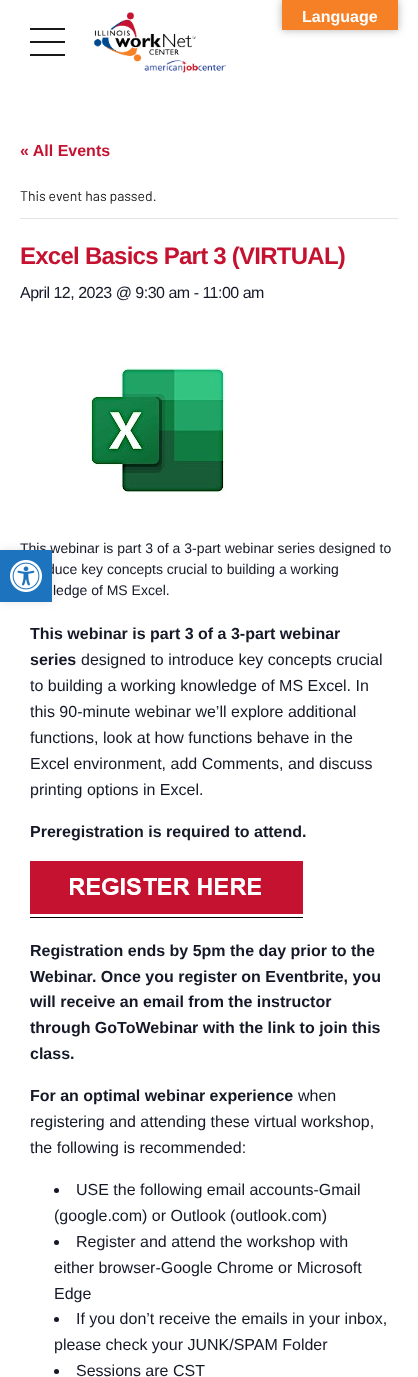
<?xml version="1.0" encoding="UTF-8"?>
<svg xmlns="http://www.w3.org/2000/svg" width="418" height="1377">
    <defs>
        <filter id="blur1" x="-50%" y="-200%" width="200%" height="500%"><feGaussianBlur stdDeviation="4.5"/></filter>
        <filter id="blur2" x="-50%" y="-200%" width="200%" height="500%"><feGaussianBlur stdDeviation="5"/></filter>
    </defs>
    <rect width="100%" height="100%" fill="#FFFFFF"/>
    <rect x="282" y="0" width="116" height="30" fill="#000000" fill-opacity="0.3" filter="url(#blur1)"/>
    <rect x="282" y="0" width="116" height="30" fill="#F58026"/>
    <text x="302" y="22" font-family="Liberation Sans" font-size="16" font-weight="700" fill="#FFFFFF">Language</text>
    <rect x="30" y="28" width="35" height="2" fill="#181818"/>
    <rect x="30" y="41" width="35" height="2" fill="#181818"/>
    <rect x="30" y="54" width="35" height="2" fill="#181818"/>
    <image x="93" y="12" width="133" height="61" href="img_01.png"/>
    <text x="20" y="156" font-family="Liberation Sans" font-size="16" font-weight="700" fill="#C41230">« All Events</text>
    <rect x="20" y="218" width="378" height="1" fill="#E4E4E4"/>
    <text x="20" y="201" font-family="Barlow" font-size="14" fill="#181818">This event has passed.</text>
    <text x="20" y="264" font-family="Liberation Sans" font-size="24" font-weight="700" letter-spacing="-0.75" fill="#C41230">Excel Basics Part 3 (VIRTUAL)</text>
    <text x="20" y="298" font-family="Liberation Sans" font-size="16" letter-spacing="-0.5" fill="#141827">April 12, 2023 @ 9:30 am - 11:00 am</text>
    <image x="84" y="363" width="143" height="135" href="img_02.png"/>
    <text x="20" y="553" font-family="Liberation Sans" font-size="14" fill="#141827">This webinar is part 3 of a 3-part webinar series designed to</text>
    <text x="47" y="574" font-family="Liberation Sans" font-size="14" fill="#141827">duce key concepts crucial to building a working</text>
    <text x="53" y="595" font-family="Liberation Sans" font-size="14" fill="#141827">ledge of MS Excel.</text>
    <text font-family="Liberation Sans" font-size="16" font-weight="700" fill="#141827">
        <tspan x="30" y="639">This webinar is part 3 of a 3-part webinar</tspan>
        <tspan x="30" y="665">series</tspan>
    </text>
    <text x="81" y="665" font-family="Liberation Sans" font-size="16" fill="#141827">designed to introduce key concepts crucial</text>
    <text font-family="Liberation Sans" font-size="16" fill="#141827">
        <tspan x="30" y="691">to building a working knowledge of MS Excel. In</tspan>
        <tspan x="30" y="717">this 90-minute webinar we’ll explore additional</tspan>
        <tspan x="30" y="743">functions, look at how functions behave in the</tspan>
        <tspan x="30" y="769">Excel environment, add Comments, and discuss</tspan>
        <tspan x="30" y="795">printing options in Excel.</tspan>
    </text>
    <text x="30" y="837" font-family="Liberation Sans" font-size="16" font-weight="700" fill="#141827">Preregistration is required to attend.</text>
    <image x="30" y="861" width="273" height="53" href="img_03.png"/>
    <rect x="30" y="917" width="273" height="1" fill="#000000"/>
    <text font-family="Liberation Sans" font-size="16" font-weight="700" fill="#141827">
        <tspan x="30" y="956">Registration ends by 5pm the day prior to the</tspan>
        <tspan x="30" y="982">Webinar. Once you register on Eventbrite, you</tspan>
        <tspan x="30" y="1007">will receive an email from the instructor</tspan>
        <tspan x="30" y="1033">through GoToWebinar with the link to join this</tspan>
        <tspan x="30" y="1059">class.</tspan>
    </text>
    <text x="30" y="1101" font-family="Liberation Sans" font-size="16" font-weight="700" fill="#141827">For an optimal webinar experience</text>
    <text x="298" y="1101" font-family="Liberation Sans" font-size="16" fill="#141827">when</text>
    <text font-family="Liberation Sans" font-size="16" fill="#141827">
        <tspan x="30" y="1127">registering and attending these virtual workshop,</tspan>
        <tspan x="30" y="1153">the following is recommended:</tspan>
    </text>
    <circle cx="56.5" cy="1190.5" r="2.5" fill="#141827"/>
    <text x="76" y="1195" font-family="Liberation Sans" font-size="16" fill="#141827">USE the following email accounts-Gmail</text>
    <text x="54" y="1221" font-family="Liberation Sans" font-size="16" fill="#141827">(google.com) or Outlook (outlook.com)</text>
    <circle cx="56.5" cy="1242.5" r="2.5" fill="#141827"/>
    <text x="76" y="1247" font-family="Liberation Sans" font-size="16" fill="#141827">Register and attend the workshop with</text>
    <text font-family="Liberation Sans" font-size="16" fill="#141827">
        <tspan x="54" y="1273">either browser-Google Chrome or Microsoft</tspan>
        <tspan x="54" y="1299">Edge</tspan>
    </text>
    <circle cx="56.5" cy="1319.5" r="2.5" fill="#141827"/>
    <text x="76" y="1324" font-family="Liberation Sans" font-size="16" fill="#141827">If you don’t receive the emails in your inbox,</text>
    <text x="54" y="1350" font-family="Liberation Sans" font-size="16" fill="#141827">please check your JUNK/SPAM Folder</text>
    <circle cx="56.5" cy="1371.5" r="2.5" fill="#141827"/>
    <text x="76" y="1376" font-family="Liberation Sans" font-size="16" fill="#141827">Sessions are CST</text>
    <rect x="0" y="550" width="52" height="52" fill="#000000" fill-opacity="0.1" filter="url(#blur2)"/>
    <rect x="0" y="550" width="52" height="52" fill="#1E73BE"/>
    <image x="10" y="560" width="32" height="32" href="img_04.png"/>
</svg>
